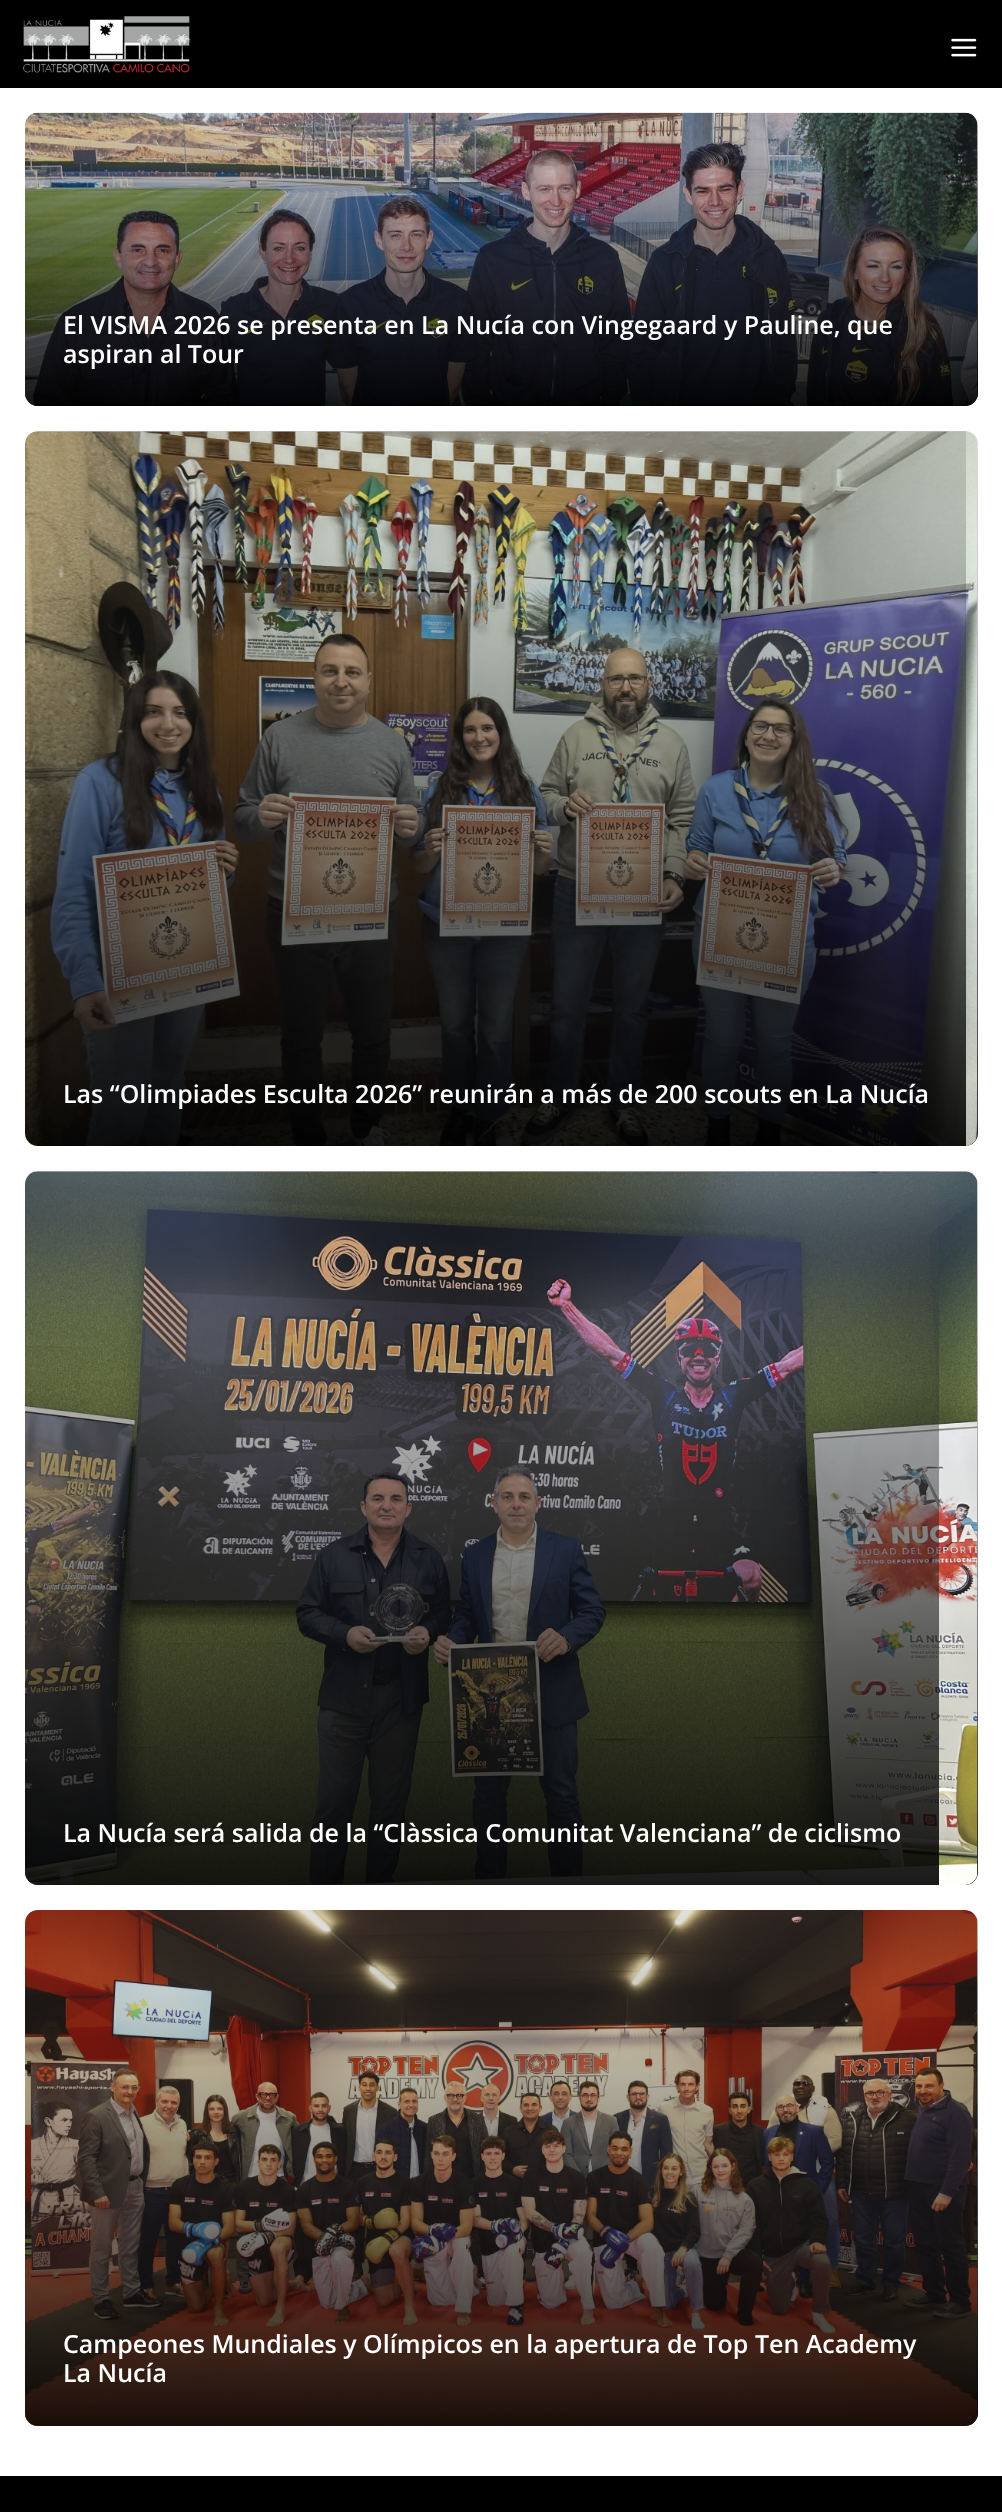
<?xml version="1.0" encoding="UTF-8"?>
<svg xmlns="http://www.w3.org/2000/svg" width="1002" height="2512">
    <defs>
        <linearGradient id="g1" gradientUnits="userSpaceOnUse" x1="501" y1="406" x2="501" y2="113"><stop offset="0" stop-color="#1A1A1A"/><stop offset="0.25" stop-color="#575757"/><stop offset="0.5" stop-color="#8F8F8F"/><stop offset="0.75" stop-color="#C0C0C0"/><stop offset="1" stop-color="#E0E0E0"/></linearGradient>
        <linearGradient id="g2" gradientUnits="userSpaceOnUse" x1="501" y1="406" x2="501" y2="113"><stop offset="0" stop-color="#000000" stop-opacity="0.9"/><stop offset="0.25" stop-color="#0F0F0F" stop-opacity="0.7"/><stop offset="0.5" stop-color="#1E1E1E" stop-opacity="0.5"/><stop offset="0.75" stop-color="#2B2B2B" stop-opacity="0.3"/><stop offset="1" stop-color="#616161" stop-opacity="0.2"/></linearGradient>
        <linearGradient id="g3" gradientUnits="userSpaceOnUse" x1="501" y1="1146" x2="501" y2="431"><stop offset="0" stop-color="#1A1A1A"/><stop offset="0.25" stop-color="#575757"/><stop offset="0.5" stop-color="#8F8F8F"/><stop offset="0.75" stop-color="#C0C0C0"/><stop offset="1" stop-color="#E0E0E0"/></linearGradient>
        <clipPath id="clip1"><rect x="25" y="431" width="953" height="715" rx="13"/></clipPath>
        <linearGradient id="g4" gradientUnits="userSpaceOnUse" x1="496" y1="1146" x2="496" y2="431"><stop offset="0" stop-color="#000000" stop-opacity="0.9"/><stop offset="0.25" stop-color="#0F0F0F" stop-opacity="0.7"/><stop offset="0.5" stop-color="#1E1E1E" stop-opacity="0.5"/><stop offset="0.75" stop-color="#2B2B2B" stop-opacity="0.3"/><stop offset="1" stop-color="#616161" stop-opacity="0.2"/></linearGradient>
        <linearGradient id="g5" gradientUnits="userSpaceOnUse" x1="501" y1="1885" x2="501" y2="1171"><stop offset="0" stop-color="#1A1A1A"/><stop offset="0.25" stop-color="#575757"/><stop offset="0.5" stop-color="#8F8F8F"/><stop offset="0.75" stop-color="#C0C0C0"/><stop offset="1" stop-color="#E0E0E0"/></linearGradient>
        <linearGradient id="g6" gradientUnits="userSpaceOnUse" x1="482" y1="1885" x2="482" y2="1171"><stop offset="0" stop-color="#000000" stop-opacity="0.9"/><stop offset="0.25" stop-color="#0F0F0F" stop-opacity="0.7"/><stop offset="0.5" stop-color="#1E1E1E" stop-opacity="0.5"/><stop offset="0.75" stop-color="#2B2B2B" stop-opacity="0.3"/><stop offset="1" stop-color="#616161" stop-opacity="0.2"/></linearGradient>
        <linearGradient id="g7" gradientUnits="userSpaceOnUse" x1="501" y1="2426" x2="501" y2="1910"><stop offset="0" stop-color="#1A1A1A"/><stop offset="0.25" stop-color="#575757"/><stop offset="0.5" stop-color="#8F8F8F"/><stop offset="0.75" stop-color="#C0C0C0"/><stop offset="1" stop-color="#E0E0E0"/></linearGradient>
        <linearGradient id="g8" gradientUnits="userSpaceOnUse" x1="501" y1="2426" x2="501" y2="1910"><stop offset="0" stop-color="#000000" stop-opacity="0.9"/><stop offset="0.25" stop-color="#0F0F0F" stop-opacity="0.7"/><stop offset="0.5" stop-color="#1E1E1E" stop-opacity="0.5"/><stop offset="0.75" stop-color="#2B2B2B" stop-opacity="0.3"/><stop offset="1" stop-color="#616161" stop-opacity="0.2"/></linearGradient>
    </defs>
    <rect width="100%" height="100%" fill="#FFFFFF"/>
    <rect x="0" y="0" width="1002" height="88" fill="#000000"/>
    <image x="23" y="16" width="168" height="57" href="img_01.png"/>
    <image x="951" y="38" width="26" height="19" href="img_02.png"/>
    <rect x="25" y="113" width="953" height="293" rx="13" fill="url(#g1)"/>
    <image x="25" y="112" width="953" height="294" href="img_03.png"/>
    <rect x="25" y="113" width="953" height="293" rx="13" fill="url(#g2)"/>
    <text font-family="Open Sans" font-size="25" font-weight="600" fill="#FFFFFF">
        <tspan x="63" y="334">El VISMA 2026 se presenta en La Nucía con Vingegaard y Pauline, que</tspan>
        <tspan x="63" y="363">aspiran al Tour</tspan>
    </text>
    <rect x="25" y="431" width="953" height="715" rx="13" fill="url(#g3)"/>
    <image x="25" y="431" width="953" height="715" href="img_04.png"/>
    <g clip-path="url(#clip1)">
        <path d="M 38 431 H 966 V 1146 H 38 C 31 1146 25 1140 25 1133 V 444 C 25 437 31 431 38 431 Z" fill="url(#g4)"/>
    </g>
    <text x="63" y="1103" font-family="Open Sans" font-size="25" font-weight="600" fill="#FFFFFF">Las “Olimpiades Esculta 2026” reunirán a más de 200 scouts en La Nucía</text>
    <rect x="25" y="1171" width="953" height="714" rx="13" fill="url(#g5)"/>
    <image x="25" y="1171" width="953" height="714" href="img_05.png"/>
    <path d="M 38 1171 H 939 V 1885 H 38 C 31 1885 25 1879 25 1872 V 1184 C 25 1177 31 1171 38 1171 Z" fill="url(#g6)"/>
    <text x="63" y="1842" font-family="Open Sans" font-size="25" font-weight="600" fill="#FFFFFF">La Nucía será salida de la “Clàssica Comunitat Valenciana” de ciclismo</text>
    <rect x="25" y="1910" width="953" height="516" rx="13" fill="url(#g7)"/>
    <image x="25" y="1910" width="953" height="516" href="img_06.png"/>
    <rect x="25" y="1910" width="953" height="516" rx="13" fill="url(#g8)"/>
    <text font-family="Open Sans" font-size="25" font-weight="600" fill="#FFFFFF">
        <tspan x="63" y="2353">Campeones Mundiales y Olímpicos en la apertura de Top Ten Academy</tspan>
        <tspan x="63" y="2382">La Nucía</tspan>
    </text>
    <rect x="0" y="2476" width="1002" height="36" fill="#000000"/>
</svg>
